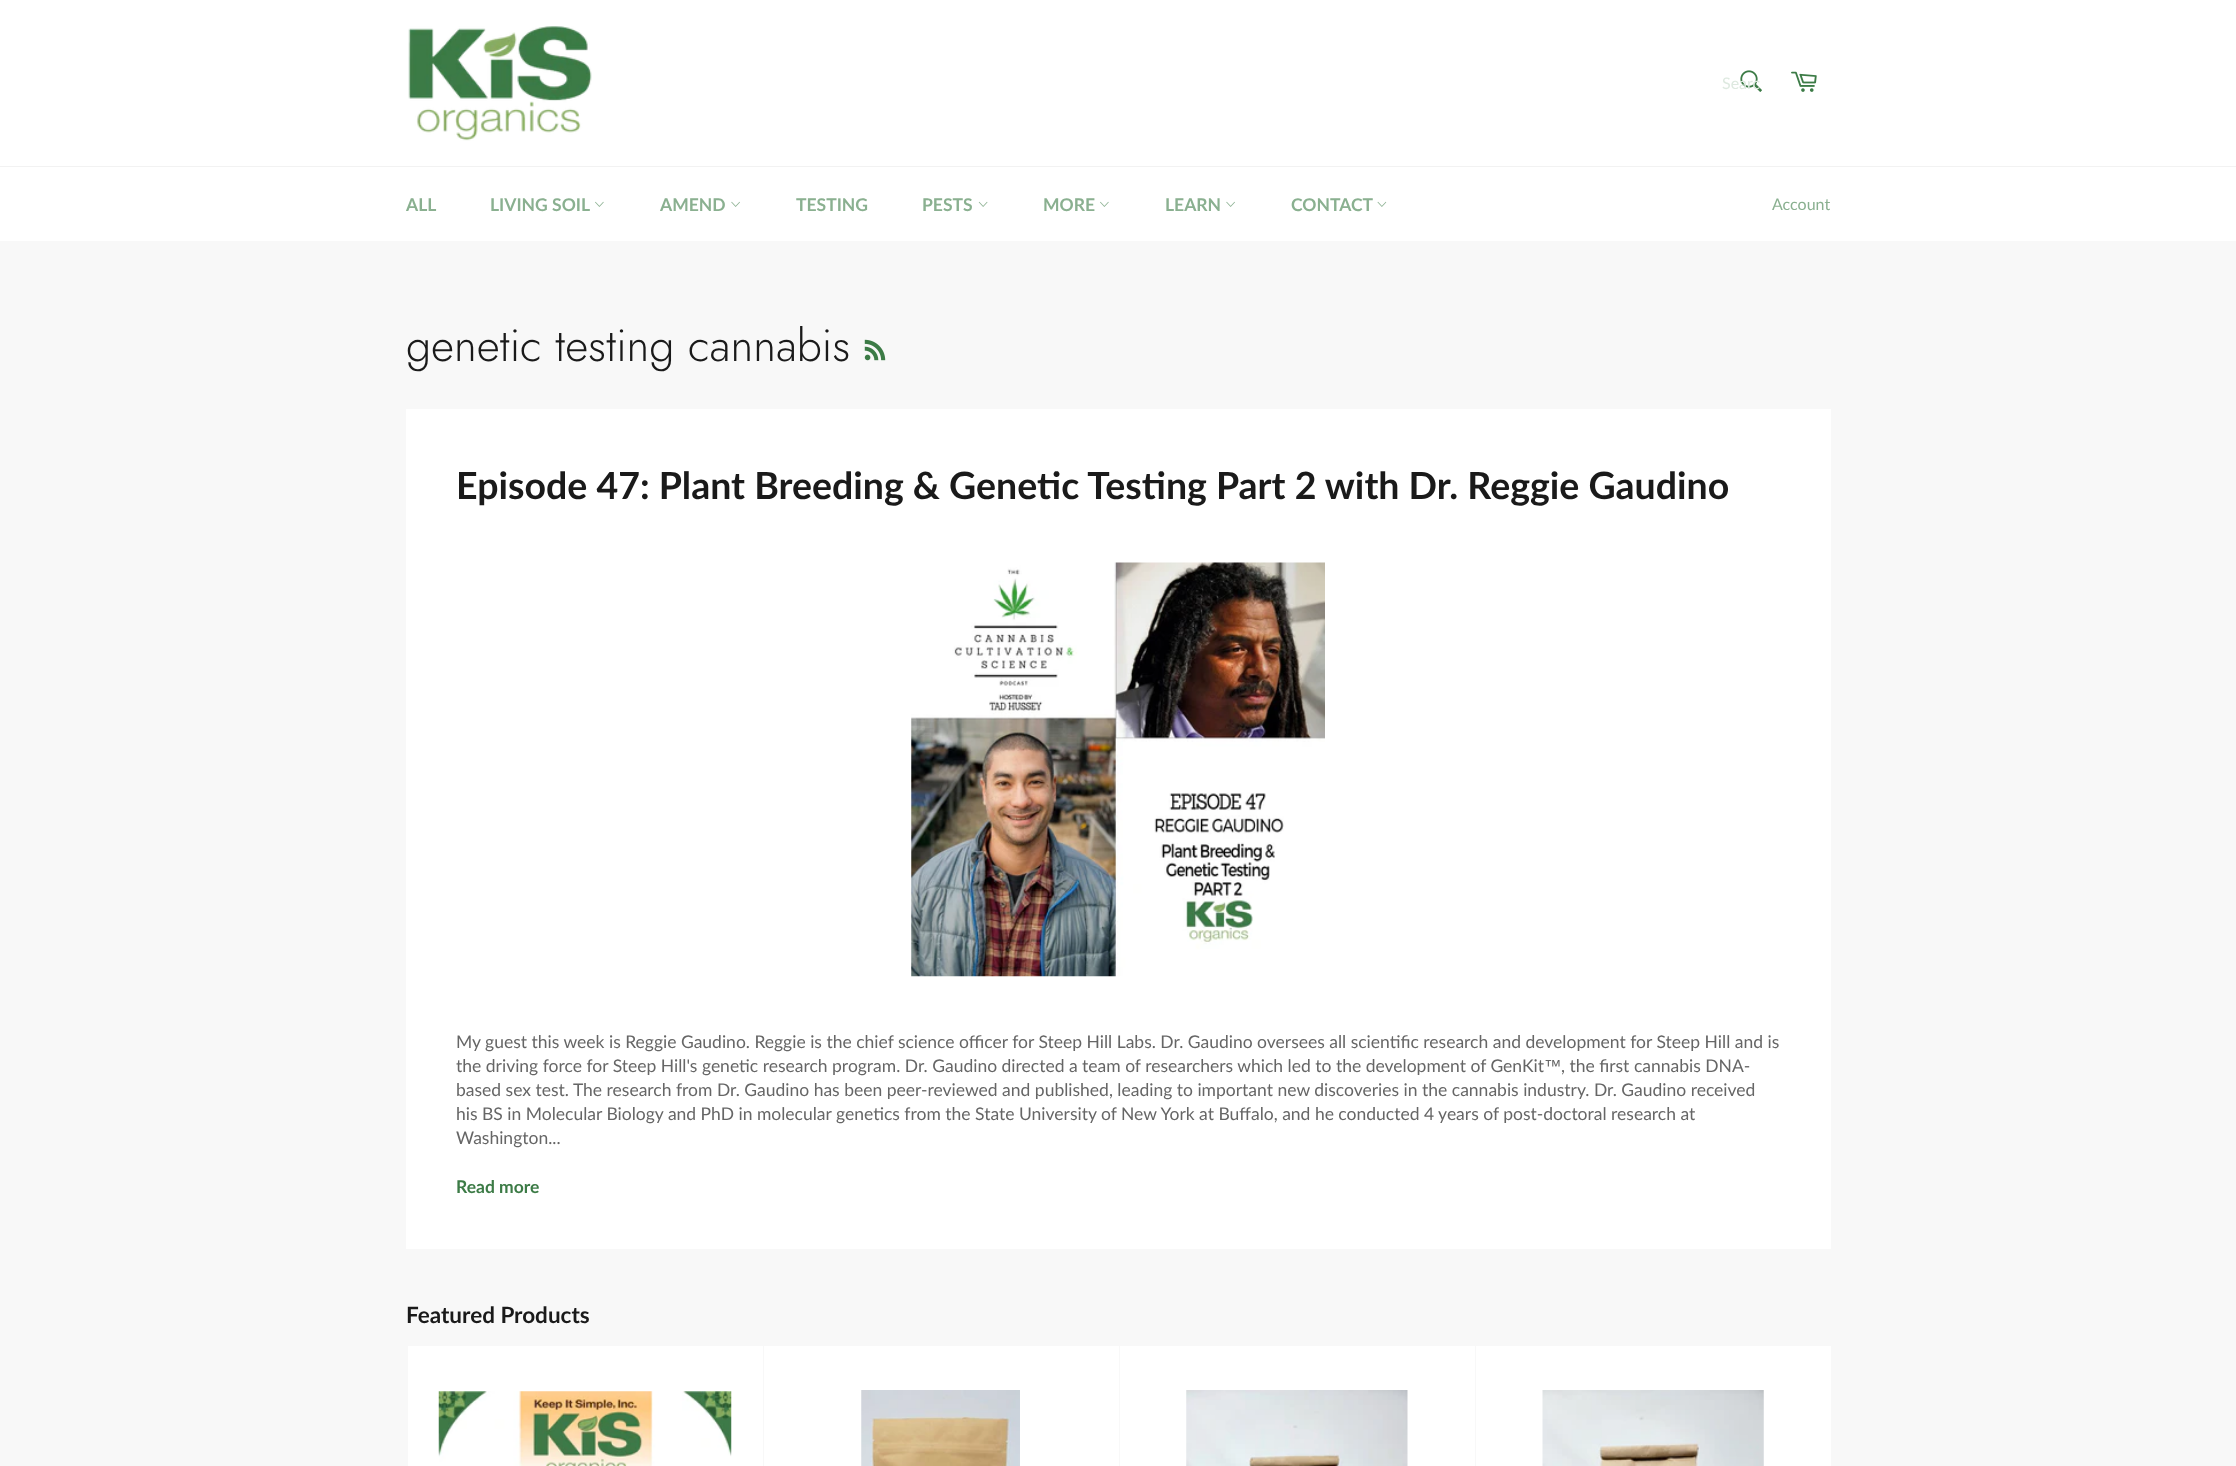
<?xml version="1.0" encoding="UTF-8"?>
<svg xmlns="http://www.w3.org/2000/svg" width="2236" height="1466">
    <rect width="100%" height="100%" fill="#F8F8F8"/>
    <rect x="0" y="0" width="2236" height="166" fill="#FFFFFF"/>
    <image x="408" y="26" width="184" height="115" href="img_01.png"/>
    <image x="1740" y="70" width="22" height="22" href="img_02.png"/>
    <text x="1722" y="89" font-family="Lato" font-size="16" fill="#DEE9E0">Searc</text>
    <image x="1791" y="71" width="26" height="21" href="img_03.png"/>
    <rect x="0" y="167" width="2236" height="74" fill="#FFFFFF"/>
    <rect x="0" y="166" width="2236" height="1" fill="#F2F2F2"/>
    <text x="406" y="211" font-family="Lato" font-size="17.5" font-weight="700" fill="#8AB090">ALL</text>
    <text x="490" y="211" font-family="Lato" font-size="17.5" font-weight="700" fill="#8AB090">LIVING SOIL</text>
    <image x="595" y="201" width="9" height="6" href="img_04.png"/>
    <text x="660" y="211" font-family="Lato" font-size="17.5" font-weight="700" fill="#8AB090">AMEND</text>
    <image x="731" y="201" width="9" height="6" href="img_05.png"/>
    <text x="796" y="211" font-family="Lato" font-size="17.5" font-weight="700" fill="#8AB090">TESTING</text>
    <text x="922" y="211" font-family="Lato" font-size="17.5" font-weight="700" fill="#8AB090">PESTS</text>
    <image x="978" y="201" width="10" height="6" href="img_06.png"/>
    <text x="1043" y="211" font-family="Lato" font-size="17.5" font-weight="700" fill="#8AB090">MORE</text>
    <image x="1100" y="201" width="9" height="6" href="img_04.png"/>
    <text x="1165" y="211" font-family="Lato" font-size="17.5" font-weight="700" fill="#8AB090">LEARN</text>
    <image x="1226" y="201" width="9" height="6" href="img_05.png"/>
    <text x="1291" y="211" font-family="Lato" font-size="17.5" font-weight="700" fill="#8AB090">CONTACT</text>
    <image x="1377" y="201" width="10" height="6" href="img_07.png"/>
    <text x="1772" y="210" font-family="Lato" font-size="16" fill="#8AB090">Account</text>
    <text x="406" y="361" font-family="Jost" font-size="45" font-weight="300" fill="#1A1A1A">genetic testing cannabis</text>
    <image x="864" y="339" width="22" height="22" href="img_08.png"/>
    <rect x="406" y="409" width="1425" height="840" fill="#FFFFFF"/>
    <text x="456" y="499" font-family="Lato" font-size="37.5" font-weight="700" fill="#1A1A1A">Episode 47: Plant Breeding &amp; Genetic Testing Part 2 with Dr. Reggie Gaudino</text>
    <image x="911" y="562" width="414" height="415" href="img_09.png"/>
    <text font-family="Lato" font-size="17.5" fill="#666666">
        <tspan x="456" y="1048">My guest this week is Reggie Gaudino. Reggie is the chief science officer for Steep Hill Labs. Dr. Gaudino oversees all scientific research and development for Steep Hill and is</tspan>
        <tspan x="456" y="1072">the driving force for Steep Hill's genetic research program. Dr. Gaudino directed a team of researchers which led to the development of GenKit</tspan>
    </text>
    <text x="1544" y="1072" font-family="Liberation Sans" font-size="17.5" fill="#666666">™</text>
    <text x="1561" y="1072" font-family="Lato" font-size="17.5" fill="#666666">, the first cannabis DNA-</text>
    <text font-family="Lato" font-size="17.5" fill="#666666">
        <tspan x="456" y="1096">based sex test. The research from Dr. Gaudino has been peer-reviewed and published, leading to important new discoveries in the cannabis industry. Dr. Gaudino received</tspan>
        <tspan x="456" y="1120">his BS in Molecular Biology and PhD in molecular genetics from the State University of New York at Buffalo, and he conducted 4 years of post-doctoral research at</tspan>
        <tspan x="456" y="1144">Washington...</tspan>
    </text>
    <text x="456" y="1193" font-family="Lato" font-size="17.5" font-weight="700" fill="#3C7B46">Read more</text>
    <text x="406" y="1323" font-family="Lato" font-size="22.5" font-weight="700" fill="#1A1A1A">Featured Products</text>
    <rect x="408" y="1346" width="355" height="120" fill="#FFFFFF"/>
    <image x="438" y="1391" width="294" height="75" href="img_10.png"/>
    <rect x="764" y="1346" width="355" height="120" fill="#FFFFFF"/>
    <image x="861" y="1390" width="159" height="76" href="img_11.png"/>
    <rect x="1120" y="1346" width="355" height="120" fill="#FFFFFF"/>
    <image x="1186" y="1390" width="222" height="76" href="img_12.png"/>
    <rect x="1476" y="1346" width="355" height="120" fill="#FFFFFF"/>
    <image x="1542" y="1390" width="222" height="76" href="img_13.png"/>
</svg>
